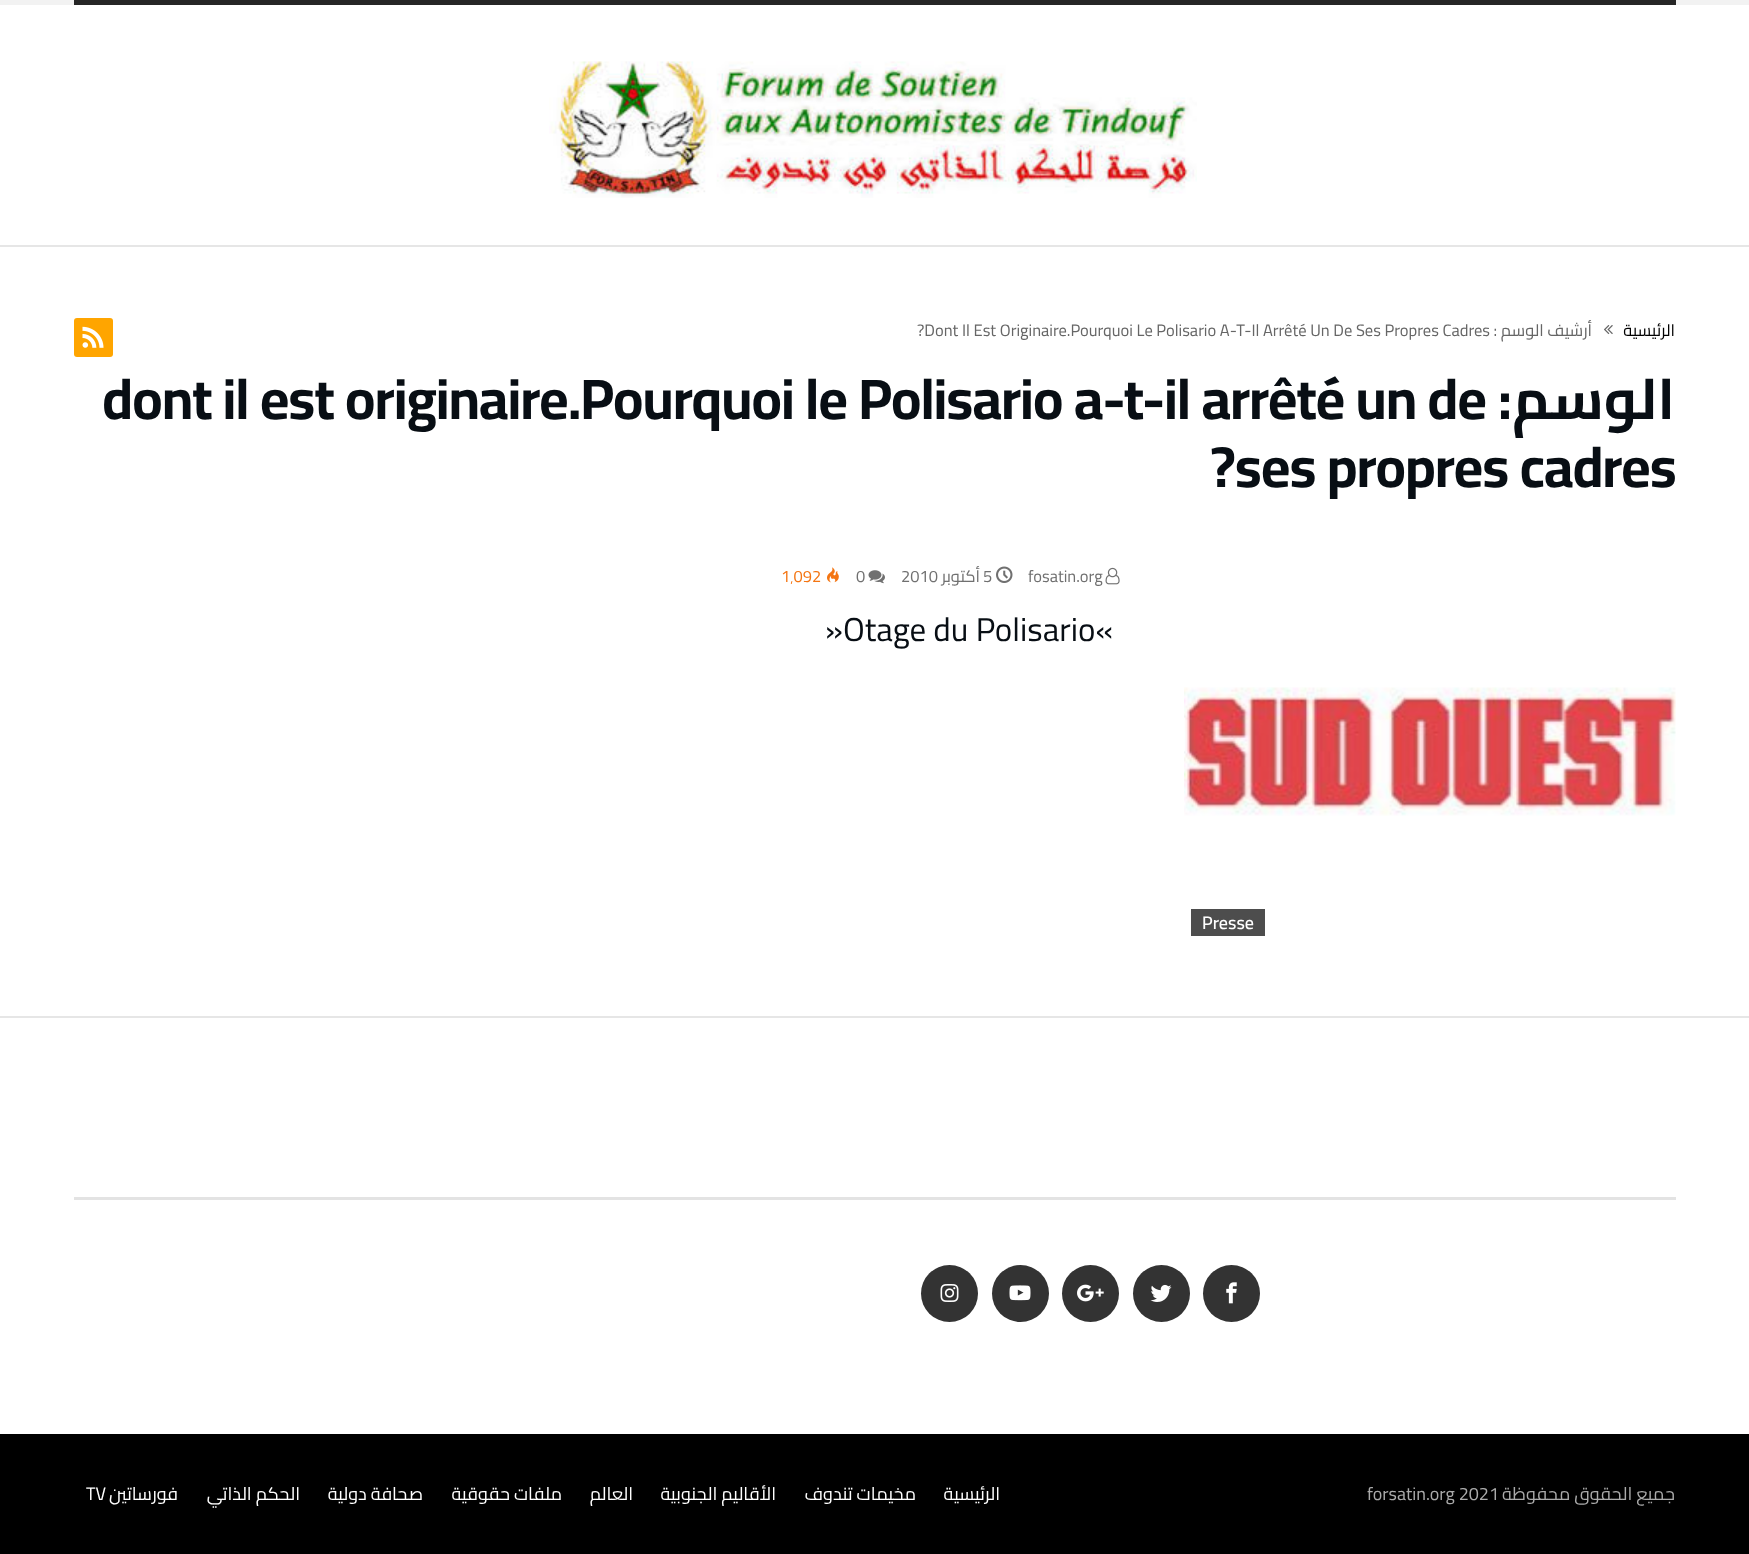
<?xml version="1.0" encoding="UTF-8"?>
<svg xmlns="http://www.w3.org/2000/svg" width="1749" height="1554">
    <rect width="100%" height="100%" fill="#FFFFFF"/>
    <rect x="0" y="0" width="1749" height="5" fill="#F2F2F2"/>
    <rect x="74" y="0" width="1602" height="5" fill="#262626"/>
    <rect x="0" y="245" width="1749" height="2" fill="#E6E6E6"/>
    <image x="549" y="61" width="648" height="137" href="img_01.png"/>
    <rect x="74" y="318" width="39" height="39" rx="3" fill="#FFA500"/>
    <image x="82" y="326" width="22" height="22" href="img_02.png"/>
    <text x="917" y="336" font-family="Cairo" font-size="16.5" fill="#666666">?Dont Il Est Originaire.Pourquoi Le Polisario A-T-Il Arrêté Un De Ses Propres Cadres</text>
    <text x="1592" y="336" font-family="Cairo" font-size="16.5" direction="rtl" fill="#666666">أرشيف الوسم :</text>
    <image x="1604" y="325" width="9" height="10" href="img_03.png"/>
    <text x="1675" y="336" font-family="Cairo" font-size="16.5" direction="rtl" fill="#000000">الرئيسية</text>
    <text x="102" y="419" font-family="Cairo" font-size="57" font-weight="700" letter-spacing="-1.15" fill="#080E14">dont il est originaire.Pourquoi le Polisario a-t-il arrêté un de</text>
    <text x="1675" y="419" font-family="Cairo" font-size="57" font-weight="700" letter-spacing="-1.15" direction="rtl" fill="#080E14">الوسم:</text>
    <text x="1210" y="487" font-family="Cairo" font-size="57" font-weight="700" letter-spacing="-1.15" fill="#080E14">?ses propres cadres</text>
    <text x="781" y="582" font-family="Cairo" font-size="16.5" fill="#F47512">1٬092</text>
    <image x="827" y="567" width="12" height="16" href="img_04.png"/>
    <text x="856" y="582" font-family="Cairo" font-size="16.5" fill="#707070">0</text>
    <image x="868" y="570" width="17" height="14" href="img_05.png"/>
    <text x="901" y="582" font-family="Cairo" font-size="16.5" fill="#707070">2010</text>
    <text x="980" y="582" font-family="Cairo" font-size="16.5" direction="rtl" fill="#707070">أكتوبر</text>
    <text x="983" y="582" font-family="Cairo" font-size="16.5" fill="#707070">5</text>
    <image x="996" y="566" width="17" height="17" href="img_06.png"/>
    <text x="1028" y="582" font-family="Cairo" font-size="16.5" fill="#707070">fosatin.org</text>
    <image x="1105" y="567" width="15" height="18" href="img_07.png"/>
    <text x="825" y="641" font-family="Cairo" font-size="33" fill="#080E14">»Otage du Polisario«</text>
    <image x="1184" y="687" width="492" height="129" href="img_08.png"/>
    <rect x="1191" y="909" width="74" height="27" fill="#4D4D4D"/>
    <text x="1202" y="929" font-family="Cairo" font-size="18" font-weight="600" fill="#FFFFFF">Presse</text>
    <rect x="0" y="1016" width="1749" height="2" fill="#E6E6E6"/>
    <rect x="74" y="1197" width="1602" height="3" fill="#E3E3E3"/>
    <circle cx="949.5" cy="1293.5" r="28.5" fill="#333333"/>
    <image x="940" y="1284" width="19" height="18" href="img_09.png"/>
    <circle cx="1020.5" cy="1293.5" r="28.5" fill="#333333"/>
    <image x="1009" y="1285" width="22" height="16" href="img_10.png"/>
    <circle cx="1090.5" cy="1293.5" r="28.5" fill="#333333"/>
    <image x="1077" y="1284" width="27" height="18" href="img_11.png"/>
    <circle cx="1161.5" cy="1293.5" r="28.5" fill="#333333"/>
    <image x="1150" y="1284" width="22" height="18" href="img_12.png"/>
    <circle cx="1231.5" cy="1293.5" r="28.5" fill="#333333"/>
    <image x="1226" y="1282" width="11" height="22" href="img_13.png"/>
    <rect x="0" y="1434" width="1749" height="120" fill="#000000"/>
    <text x="86" y="1500" font-family="Cairo" font-size="18" fill="#FFFFFF">TV</text>
    <text x="178" y="1500" font-family="Cairo" font-size="18" direction="rtl" fill="#FFFFFF">فورساتين</text>
    <text x="300" y="1500" font-family="Cairo" font-size="18" direction="rtl" fill="#FFFFFF">الحكم الذاتي</text>
    <text x="423" y="1500" font-family="Cairo" font-size="18" direction="rtl" fill="#FFFFFF">صحافة دولية</text>
    <text x="562" y="1500" font-family="Cairo" font-size="18" direction="rtl" fill="#FFFFFF">ملفات حقوقية</text>
    <text x="633" y="1500" font-family="Cairo" font-size="18" direction="rtl" fill="#FFFFFF">العالم</text>
    <text x="776" y="1500" font-family="Cairo" font-size="18" direction="rtl" fill="#FFFFFF">الأقاليم الجنوبية</text>
    <text x="916" y="1500" font-family="Cairo" font-size="18" direction="rtl" fill="#FFFFFF">مخيمات تندوف</text>
    <text x="1000" y="1500" font-family="Cairo" font-size="18" direction="rtl" fill="#FFFFFF">الرئيسية</text>
    <text x="1367" y="1500" font-family="Cairo" font-size="18" fill="#AAAAAA">forsatin.org 2021</text>
    <text x="1675" y="1500" font-family="Cairo" font-size="18" direction="rtl" fill="#AAAAAA">جميع الحقوق محفوظة</text>
</svg>
